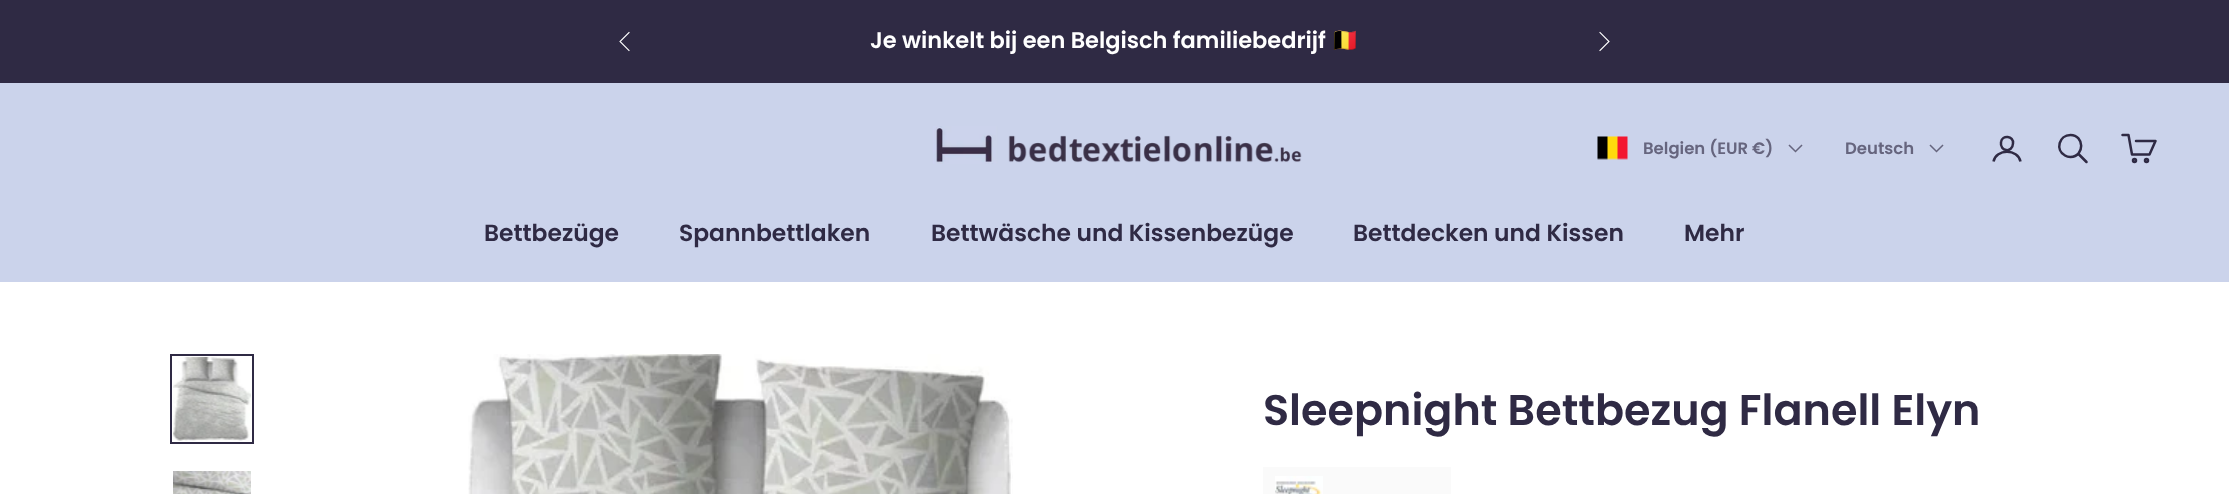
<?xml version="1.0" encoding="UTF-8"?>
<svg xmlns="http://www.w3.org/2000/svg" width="2229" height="494">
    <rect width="100%" height="100%" fill="#FFFFFF"/>
    <rect x="0" y="0" width="2229" height="83" fill="#2F2A44"/>
    <path d="M 629 32.5 L 620 41.5 L 629 50.5" fill="none" stroke="#FFFFFF" stroke-width="1.1" stroke-linecap="square"/>
    <text x="870" y="48" font-family="Poppins" font-size="22.5" font-weight="600" fill="#FFFFFF">Je winkelt bij een Belgisch familiebedrijf</text>
    <text x="1331" y="48" font-family="Noto Color Emoji" font-size="22.5" font-weight="700" fill="#FFFFFF">🇧🇪</text>
    <path d="M 1600 50.5 L 1609 41.5 L 1600 32.5" fill="none" stroke="#FFFFFF" stroke-width="1.1" stroke-linecap="square"/>
    <rect x="0" y="83" width="2229" height="199" fill="#CBD3EB"/>
    <image x="933" y="126" width="369" height="38" href="img_01.png"/>
    <image x="1597" y="136" width="31" height="24" href="img_02.png"/>
    <text x="1643" y="154" font-family="Poppins" font-size="16.5" font-weight="600" fill="#66657E">Belgien (EUR €)</text>
    <path d="M 1789.5 145.5 L 1795.5 151.5 L 1801.5 145.5" fill="none" stroke="#66657E" stroke-width="1.5" stroke-linecap="square"/>
    <text x="1845" y="154" font-family="Poppins" font-size="16.5" font-weight="600" fill="#66657E">Deutsch</text>
    <path d="M 1930.5 145.5 L 1936.5 151.5 L 1942.5 145.5" fill="none" stroke="#66657E" stroke-width="1.5" stroke-linecap="square"/>
    <path d="M 2013 143.5 C 2012.5 153.5 1999.5 151.5 2001 142 C 2002 134.5 2014 135.5 2013 143.5 Z" fill="none" stroke="#2F2A44" stroke-width="2.5" stroke-linecap="round" stroke-linejoin="round"/>
    <path d="M 1993.5 161.5 C 1996 148.5 2018 148.5 2020.5 161.5" fill="none" stroke="#2F2A44" stroke-width="2.5"/>
    <path d="M 2070.5 135 C 2059 135 2055 150 2065 155.5 C 2066.5 156.5 2068.5 157 2070.5 157 C 2085 156.5 2084.5 135 2070.5 135 Z" fill="none" stroke="#2F2A44" stroke-width="2.5"/>
    <path d="M 2079 154.5 L 2086.5 162" fill="none" stroke="#2F2A44" stroke-width="2.5" stroke-linecap="round"/>
    <path d="M 2136 141 H 2155.5 L 2149.5 154.5 H 2132 L 2128.5 135 H 2122.5" fill="none" stroke="#2F2A44" stroke-width="2.5" stroke-linecap="round" stroke-linejoin="round"/>
    <circle cx="2134.5" cy="160.5" r="1.5" fill="none" stroke="#2F2A44" stroke-width="2.5"/>
    <circle cx="2146.5" cy="160.5" r="1.5" fill="none" stroke="#2F2A44" stroke-width="2.5"/>
    <text x="484" y="241" font-family="Poppins" font-size="23.4" font-weight="600" fill="#2F2A44">Bettbezüge</text>
    <text x="679" y="241" font-family="Poppins" font-size="23.4" font-weight="600" fill="#2F2A44">Spannbettlaken</text>
    <text x="931" y="241" font-family="Poppins" font-size="23.4" font-weight="600" fill="#2F2A44">Bettwäsche und Kissenbezüge</text>
    <text x="1353" y="241" font-family="Poppins" font-size="23.4" font-weight="600" fill="#2F2A44">Bettdecken und Kissen</text>
    <text x="1684" y="241" font-family="Poppins" font-size="23.4" font-weight="600" fill="#2F2A44">Mehr</text>
    <rect x="171" y="355" width="82" height="88" fill="none" stroke="#2F2A44" stroke-width="2"/>
    <image x="173" y="357" width="78" height="84" href="img_03.png"/>
    <image x="173" y="471" width="78" height="23" href="img_04.png"/>
    <image x="468" y="354" width="545" height="140" href="img_05.png"/>
    <text x="1263" y="425" font-family="Poppins" font-size="42.9" font-weight="600" fill="#2F2A44">Sleepnight Bettbezug Flanell Elyn</text>
    <rect x="1263" y="467" width="188" height="27" fill="#FAFAFA"/>
    <image x="1275" y="476" width="48" height="18" href="img_06.png"/>
</svg>
